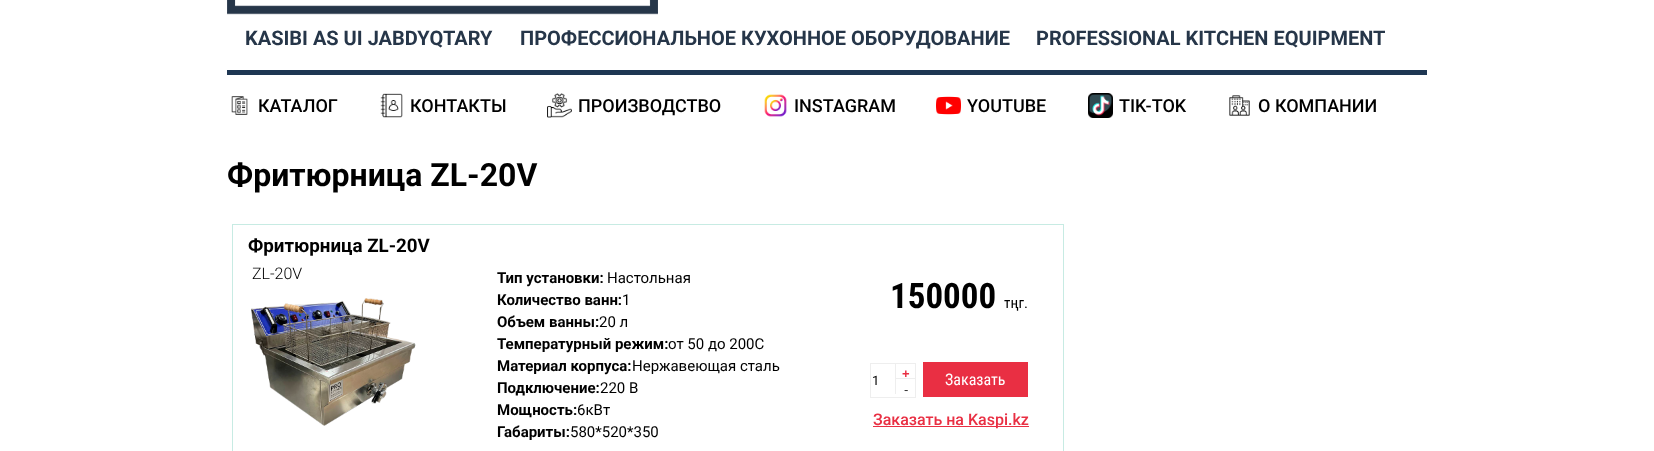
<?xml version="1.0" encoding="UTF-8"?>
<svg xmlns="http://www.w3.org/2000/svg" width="1654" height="451">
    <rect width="100%" height="100%" fill="#FFFFFF"/>
    <rect x="227" y="70" width="1200" height="5" fill="#1E3753"/>
    <image x="227" y="0" width="431" height="15" href="img_01.png"/>
    <text x="245" y="45" font-family="Roboto" font-size="20" font-weight="700" fill="#263649">KASIBI AS UI JABDYQTARY</text>
    <text x="520" y="45" font-family="Roboto" font-size="20" font-weight="700" fill="#263649">ПРОФЕССИОНАЛЬНОЕ КУХОННОЕ ОБОРУДОВАНИЕ</text>
    <text x="1036" y="45" font-family="Roboto" font-size="20" font-weight="700" fill="#263649">PROFESSIONAL KITCHEN EQUIPMENT</text>
    <image x="231" y="96" width="17" height="19" href="img_02.png"/>
    <text x="258" y="112" font-family="Roboto" font-size="18" font-weight="500" fill="#000000">КАТАЛОГ</text>
    <image x="380" y="93" width="23" height="25" href="img_03.png"/>
    <text x="410" y="112" font-family="Roboto" font-size="18" font-weight="500" fill="#000000">КОНТАКТЫ</text>
    <image x="547" y="93" width="25" height="25" href="img_04.png"/>
    <text x="578" y="112" font-family="Roboto" font-size="18" font-weight="500" fill="#000000">ПРОИЗВОДСТВО</text>
    <image x="764" y="94" width="23" height="23" href="img_05.png"/>
    <text x="794" y="112" font-family="Roboto" font-size="18" font-weight="500" fill="#000000">INSTAGRAM</text>
    <image x="936" y="96" width="25" height="19" href="img_06.png"/>
    <text x="967" y="112" font-family="Roboto" font-size="18" font-weight="500" fill="#000000">YOUTUBE</text>
    <image x="1088" y="93" width="25" height="25" href="img_07.png"/>
    <text x="1119" y="112" font-family="Roboto" font-size="18" font-weight="500" fill="#000000">TIK-TOK</text>
    <image x="1229" y="95" width="21" height="21" href="img_08.png"/>
    <text x="1258" y="112" font-family="Roboto" font-size="18" font-weight="500" fill="#000000">О КОМПАНИИ</text>
    <text x="227" y="186" font-family="Roboto" font-size="32" font-weight="700" fill="#000000">Фритюрница ZL-20V</text>
    <rect x="232.5" y="224.5" width="831" height="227" fill="none" stroke="#C7EBE3"/>
    <text x="248" y="252" font-family="Roboto" font-size="18.75" font-weight="700" fill="#000000">Фритюрница ZL-20V</text>
    <text x="252" y="279" font-family="Roboto" font-size="16" font-weight="300" fill="#000000">ZL-20V</text>
    <text x="497" y="283" font-family="Roboto" font-size="15" font-weight="700" fill="#000000">Тип установки:</text>
    <text x="607" y="283" font-family="Roboto" font-size="15" fill="#000000">Настольная</text>
    <text x="497" y="305" font-family="Roboto" font-size="15" font-weight="700" fill="#000000">Количество ванн:</text>
    <text x="622" y="305" font-family="Roboto" font-size="15" fill="#000000">1</text>
    <text x="497" y="327" font-family="Roboto" font-size="15" font-weight="700" fill="#000000">Объем ванны:</text>
    <text x="599" y="327" font-family="Roboto" font-size="15" fill="#000000">20 л</text>
    <text x="497" y="349" font-family="Roboto" font-size="15" font-weight="700" fill="#000000">Температурный режим:</text>
    <text x="668" y="349" font-family="Roboto" font-size="15" fill="#000000">от 50 до 200С</text>
    <text x="497" y="371" font-family="Roboto" font-size="15" font-weight="700" fill="#000000">Материал корпуса:</text>
    <text x="632" y="371" font-family="Roboto" font-size="15" fill="#000000">Нержавеющая сталь</text>
    <text x="497" y="393" font-family="Roboto" font-size="15" font-weight="700" fill="#000000">Подключение:</text>
    <text x="600" y="393" font-family="Roboto" font-size="15" fill="#000000">220 В</text>
    <text x="497" y="415" font-family="Roboto" font-size="15" font-weight="700" fill="#000000">Мощность:</text>
    <text x="577" y="415" font-family="Roboto" font-size="15" fill="#000000">6кВт</text>
    <text x="497" y="437" font-family="Roboto" font-size="15" font-weight="700" fill="#000000">Габариты:</text>
    <text x="570" y="437" font-family="Roboto" font-size="15" fill="#000000">580*520*350</text>
    <text x="890" y="308" font-family="Roboto Condensed" font-size="35" font-weight="700" fill="#000000">150000</text>
    <text x="1004" y="308" font-family="Roboto Condensed" font-size="15" fill="#000000">тңг.</text>
    <image x="251" y="298" width="165" height="128" href="img_09.png"/>
    <rect x="870.5" y="363.5" width="45" height="34" fill="none" stroke="#EEEEEE"/>
    <text x="872" y="385" font-family="Roboto" font-size="13" fill="#000000">1</text>
    <rect x="895" y="378" width="21" height="1" fill="#EEEEEE"/>
    <rect x="895" y="363" width="1" height="31" fill="#EEEEEE"/>
    <text x="902" y="378" font-family="Liberation Sans" font-size="13" font-weight="700" fill="#E92F43">+</text>
    <text x="904" y="394" font-family="Liberation Sans" font-size="13" fill="#333333">-</text>
    <rect x="923" y="362" width="105" height="35" fill="#E92F43"/>
    <text x="945" y="385" font-family="Roboto Condensed" font-size="16" fill="#FFFFFF">Заказать</text>
    <rect x="873" y="426" width="156" height="1" fill="#E92F43"/>
    <text x="873" y="425" font-family="Roboto" font-size="16" font-weight="500" fill="#E92F43">Заказать на Kaspi.kz</text>
</svg>
